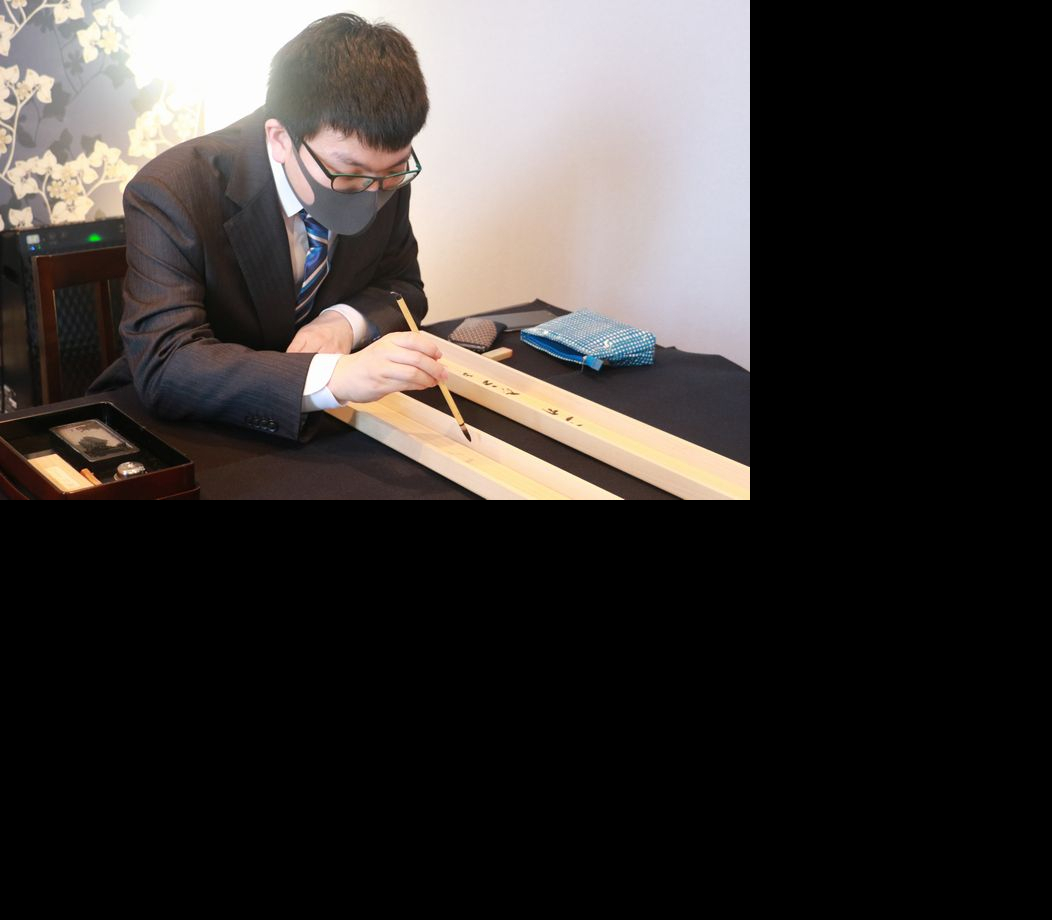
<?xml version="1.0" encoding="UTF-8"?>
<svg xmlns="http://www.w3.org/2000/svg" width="1052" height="920">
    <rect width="100%" height="100%" fill="#000000"/>
    <image x="0" y="0" width="750" height="500" href="img_01.png"/>
</svg>
